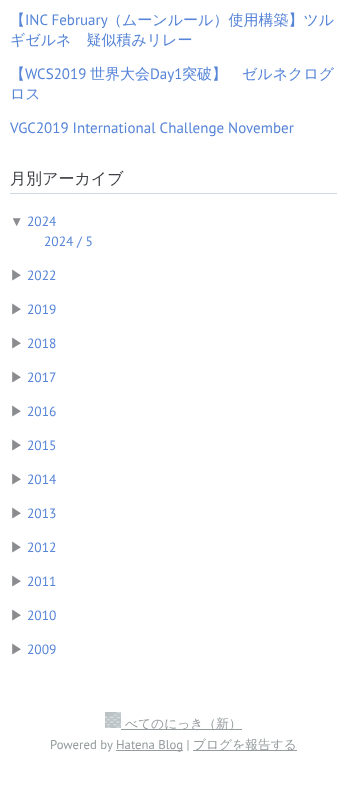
<?xml version="1.0" encoding="UTF-8"?>
<svg xmlns="http://www.w3.org/2000/svg" width="347" height="791">
    <rect width="100%" height="100%" fill="#FFFFFF"/>
    <text x="10" y="25" font-family="WenQuanYi Zen Hei" font-size="15" font-weight="500" fill="#5684D7">【</text>
    <text x="25" y="25" font-family="PT Sans" font-size="15" fill="#5684D7">INC February</text>
    <text x="107" y="25" font-family="WenQuanYi Zen Hei" font-size="15" font-weight="500" fill="#5684D7">（ムーンルール）使用構築】ツル</text>
    <text x="10" y="45" font-family="WenQuanYi Zen Hei" font-size="15" font-weight="500" fill="#5684D7">ギゼルネ　疑似積みリレー</text>
    <text x="10" y="79" font-family="WenQuanYi Zen Hei" font-size="15" font-weight="500" fill="#5684D7">【</text>
    <text x="25" y="79" font-family="PT Sans" font-size="15" fill="#5684D7">WCS2019</text>
    <text x="90" y="79" font-family="WenQuanYi Zen Hei" font-size="15" font-weight="500" fill="#5684D7">世界大会</text>
    <text x="150" y="79" font-family="PT Sans" font-size="15" fill="#5684D7">Day1</text>
    <text x="182" y="79" font-family="WenQuanYi Zen Hei" font-size="15" font-weight="500" fill="#5684D7">突破】　ゼルネクログ</text>
    <text x="10" y="99" font-family="WenQuanYi Zen Hei" font-size="15" font-weight="500" fill="#5684D7">ロス</text>
    <text x="10" y="133" font-family="PT Sans" font-size="15" fill="#5684D7">VGC2019 International Challenge November</text>
    <rect x="10" y="193" width="327" height="1" fill="#D2D7E5"/>
    <text x="10" y="184" font-family="WenQuanYi Zen Hei" font-size="16" font-weight="500" fill="#3D3F44">月別アーカイブ</text>
    <text x="10" y="226" font-family="Liberation Sans" font-size="13.5" fill="#8B8C8F">▼</text>
    <text x="27" y="226" font-family="PT Sans" font-size="13.5" fill="#5684D7">2024</text>
    <text x="44" y="246" font-family="PT Sans" font-size="13.5" fill="#5684D7">2024 / 5</text>
    <text x="10" y="280" font-family="WenQuanYi Zen Hei" font-size="13.5" font-weight="500" fill="#8B8C8F">▶</text>
    <text x="27" y="280" font-family="PT Sans" font-size="13.5" fill="#5684D7">2022</text>
    <text x="10" y="314" font-family="WenQuanYi Zen Hei" font-size="13.5" font-weight="500" fill="#8B8C8F">▶</text>
    <text x="27" y="314" font-family="PT Sans" font-size="13.5" fill="#5684D7">2019</text>
    <text x="10" y="348" font-family="WenQuanYi Zen Hei" font-size="13.5" font-weight="500" fill="#8B8C8F">▶</text>
    <text x="27" y="348" font-family="PT Sans" font-size="13.5" fill="#5684D7">2018</text>
    <text x="10" y="382" font-family="WenQuanYi Zen Hei" font-size="13.5" font-weight="500" fill="#8B8C8F">▶</text>
    <text x="27" y="382" font-family="PT Sans" font-size="13.5" fill="#5684D7">2017</text>
    <text x="10" y="416" font-family="WenQuanYi Zen Hei" font-size="13.5" font-weight="500" fill="#8B8C8F">▶</text>
    <text x="27" y="416" font-family="PT Sans" font-size="13.5" fill="#5684D7">2016</text>
    <text x="10" y="450" font-family="WenQuanYi Zen Hei" font-size="13.5" font-weight="500" fill="#8B8C8F">▶</text>
    <text x="27" y="450" font-family="PT Sans" font-size="13.5" fill="#5684D7">2015</text>
    <text x="10" y="484" font-family="WenQuanYi Zen Hei" font-size="13.5" font-weight="500" fill="#8B8C8F">▶</text>
    <text x="27" y="484" font-family="PT Sans" font-size="13.5" fill="#5684D7">2014</text>
    <text x="10" y="518" font-family="WenQuanYi Zen Hei" font-size="13.5" font-weight="500" fill="#8B8C8F">▶</text>
    <text x="27" y="518" font-family="PT Sans" font-size="13.5" fill="#5684D7">2013</text>
    <text x="10" y="552" font-family="WenQuanYi Zen Hei" font-size="13.5" font-weight="500" fill="#8B8C8F">▶</text>
    <text x="27" y="552" font-family="PT Sans" font-size="13.5" fill="#5684D7">2012</text>
    <text x="10" y="586" font-family="WenQuanYi Zen Hei" font-size="13.5" font-weight="500" fill="#8B8C8F">▶</text>
    <text x="27" y="586" font-family="PT Sans" font-size="13.5" fill="#5684D7">2011</text>
    <text x="10" y="620" font-family="WenQuanYi Zen Hei" font-size="13.5" font-weight="500" fill="#8B8C8F">▶</text>
    <text x="27" y="620" font-family="PT Sans" font-size="13.5" fill="#5684D7">2010</text>
    <text x="10" y="654" font-family="WenQuanYi Zen Hei" font-size="13.5" font-weight="500" fill="#8B8C8F">▶</text>
    <text x="27" y="654" font-family="PT Sans" font-size="13.5" fill="#5684D7">2009</text>
    <image x="105" y="712" width="16" height="16" href="img_01.png"/>
    <rect x="121" y="729" width="121" height="1" fill="#959C9E"/>
    <text x="125" y="728" font-family="WenQuanYi Zen Hei" font-size="12.75" font-weight="500" fill="#959C9E">べてのにっき（新）</text>
    <text x="50" y="749" font-family="PT Sans" font-size="12.75" fill="#959C9E">Powered by</text>
    <rect x="116" y="750" width="67" height="1" fill="#959C9E"/>
    <text x="116" y="749" font-family="PT Sans" font-size="12.75" fill="#959C9E">Hatena Blog |</text>
    <rect x="193" y="750" width="104" height="1" fill="#959C9E"/>
    <text x="193" y="749" font-family="WenQuanYi Zen Hei" font-size="12.75" font-weight="500" fill="#959C9E">ブログを報告する</text>
</svg>
